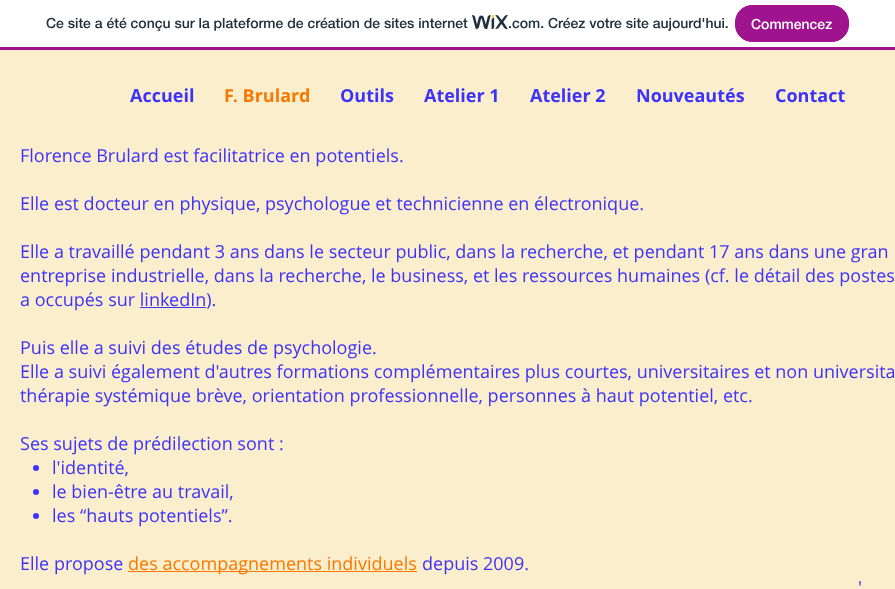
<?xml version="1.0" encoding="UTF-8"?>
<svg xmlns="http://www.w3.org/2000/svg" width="895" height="589">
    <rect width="100%" height="100%" fill="#FFFFFF"/>
    <rect x="0" y="47" width="895" height="3" fill="#A0138E"/>
    <text x="46" y="28" font-family="'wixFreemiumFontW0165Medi'" font-size="14" font-weight="500" fill="#20303C">Ce site a été conçu sur la plateforme de création de sites internet</text>
    <image x="472" y="15" width="36" height="15" href="img_01.png"/>
    <text x="508" y="28" font-family="'wixFreemiumFontW0165Medi'" font-size="14" font-weight="500" fill="#20303C">.com. Créez votre site aujourd'hui.</text>
    <rect x="735.5" y="5.5" width="113" height="36" rx="16.5" fill="#A0138E" stroke="#A0138E"/>
    <text x="751" y="29" font-family="'wixFreemiumFontW0165Medi'" font-size="14" font-weight="500" fill="#FFFFFF">Commencez</text>
    <rect x="0" y="50" width="895" height="539" fill="#FAEECD"/>
    <text x="130" y="102" font-family="Open Sans" font-size="18" font-weight="700" fill="#3C32FA">Accueil</text>
    <text x="224" y="102" font-family="Open Sans" font-size="18" font-weight="700" fill="#FA7800">F. Brulard</text>
    <text x="340" y="102" font-family="Open Sans" font-size="18" font-weight="700" fill="#3C32FA">Outils</text>
    <text x="424" y="102" font-family="Open Sans" font-size="18" font-weight="700" fill="#3C32FA">Atelier 1</text>
    <text x="530" y="102" font-family="Open Sans" font-size="18" font-weight="700" fill="#3C32FA">Atelier 2</text>
    <text x="636" y="102" font-family="Open Sans" font-size="18" font-weight="700" fill="#3C32FA">Nouveautés</text>
    <text x="775" y="102" font-family="Open Sans" font-size="18" font-weight="700" fill="#3C32FA">Contact</text>
    <text x="20" y="162" font-family="Open Sans" font-size="18" fill="#3C32FA">Florence Brulard est facilitatrice en potentiels.</text>
    <text x="20" y="210" font-family="Open Sans" font-size="18" fill="#3C32FA">Elle est docteur en physique, psychologue et technicienne en électronique.</text>
    <text font-family="Open Sans" font-size="18" fill="#3C32FA">
        <tspan x="20" y="258">Elle a travaillé pendant 3 ans dans le secteur public, dans la recherche, et pendant 17 ans dans une gran</tspan>
        <tspan x="20" y="282">entreprise industrielle, dans la recherche, le business, et les ressources humaines (cf. le détail des postes</tspan>
        <tspan x="20" y="306">a occupés sur linkedIn).</tspan>
    </text>
    <rect x="140" y="307" width="66" height="1" fill="#3C32FA"/>
    <text font-family="Open Sans" font-size="18" fill="#3C32FA">
        <tspan x="20" y="354">Puis elle a suivi des études de psychologie.</tspan>
        <tspan x="20" y="378">Elle a suivi également d'autres formations complémentaires plus courtes, universitaires et non universita</tspan>
        <tspan x="20" y="402">thérapie systémique brève, orientation professionnelle, personnes à haut potentiel, etc.</tspan>
    </text>
    <text x="20" y="450" font-family="Open Sans" font-size="18" fill="#3C32FA">Ses sujets de prédilection sont :</text>
    <circle cx="36" cy="468" r="3" fill="#3C32FA"/>
    <text x="52" y="474" font-family="Open Sans" font-size="18" fill="#3C32FA">l'identité,</text>
    <circle cx="36" cy="492" r="3" fill="#3C32FA"/>
    <text x="52" y="498" font-family="Open Sans" font-size="18" fill="#3C32FA">le bien-être au travail,</text>
    <circle cx="36" cy="516" r="3" fill="#3C32FA"/>
    <text x="52" y="522" font-family="Open Sans" font-size="18" fill="#3C32FA">les “hauts potentiels”.</text>
    <text x="20" y="570" font-family="Open Sans" font-size="18" fill="#3C32FA">Elle propose</text>
    <rect x="128" y="571" width="289" height="1" fill="#FA7800"/>
    <text x="128" y="570" font-family="Open Sans" font-size="18" fill="#FA7800">des accompagnements individuels</text>
    <text x="422" y="570" font-family="Open Sans" font-size="18" fill="#3C32FA">depuis 2009.</text>
    <text x="858" y="594" font-family="Open Sans" font-size="18" fill="#3C32FA">'</text>
</svg>
